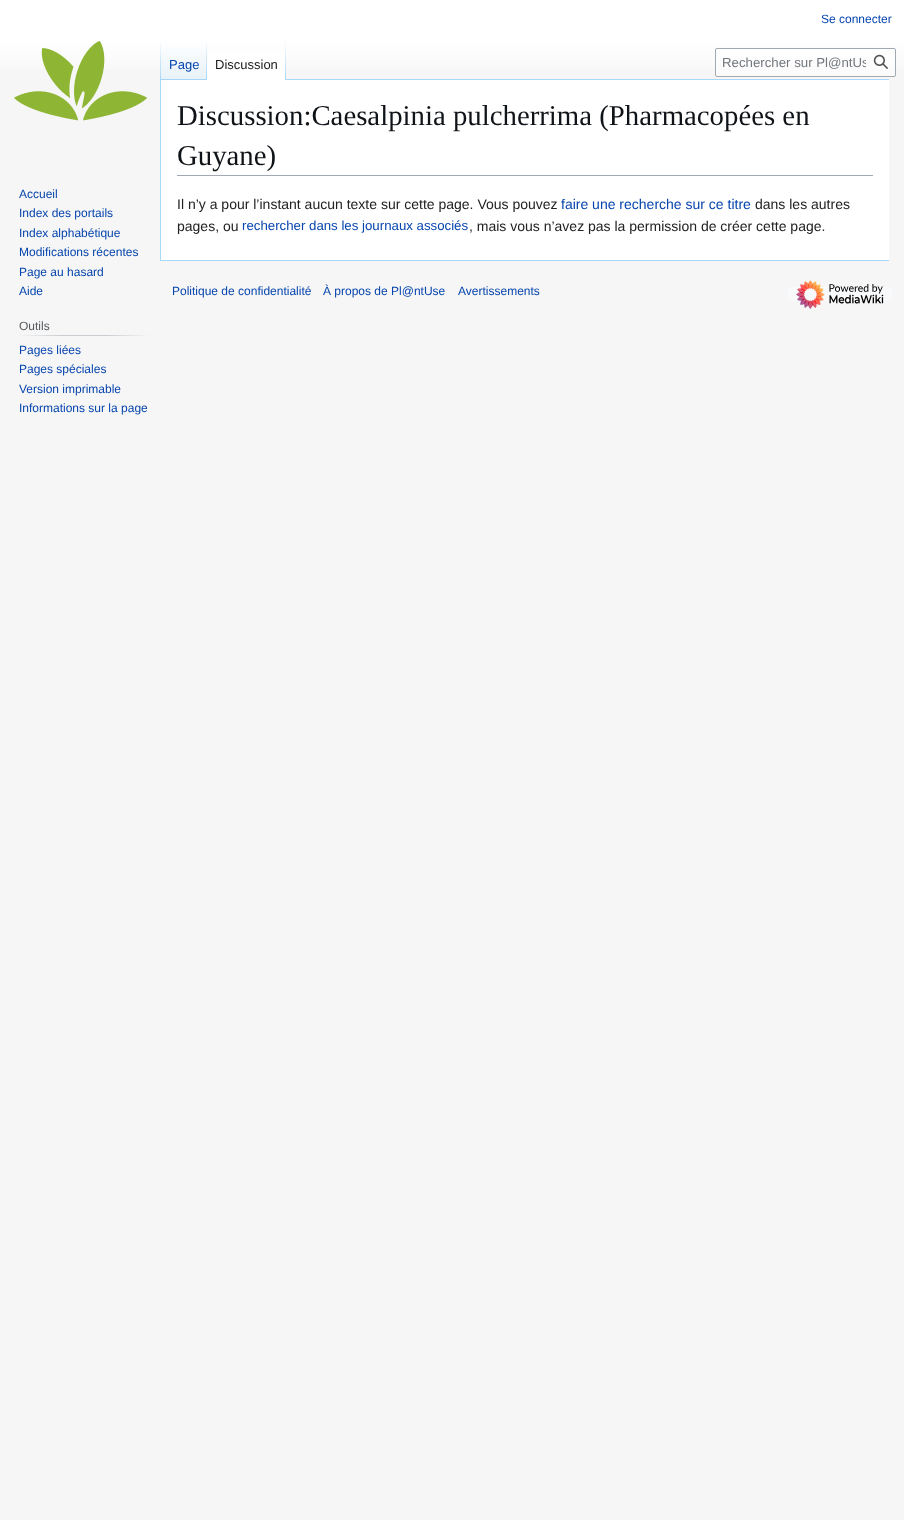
<?xml version="1.0" encoding="UTF-8"?>
<svg xmlns="http://www.w3.org/2000/svg" width="904" height="1520">
    <defs>
        <linearGradient id="g1" gradientUnits="userSpaceOnUse" x1="452" y1="0" x2="452" y2="80"><stop offset="0.5" stop-color="#FFFFFF"/><stop offset="1" stop-color="#F6F6F6"/></linearGradient>
        <linearGradient id="g2" gradientUnits="userSpaceOnUse" x1="161" y1="40" x2="161" y2="80"><stop offset="0" stop-color="#A7D7F9" stop-opacity="0"/><stop offset="1" stop-color="#A7D7F9"/></linearGradient>
        <linearGradient id="g3" gradientUnits="userSpaceOnUse" x1="184" y1="80" x2="184" y2="40"><stop offset="0" stop-color="#77C1F6"/><stop offset="0.03" stop-color="#E8F2F8"/><stop offset="1" stop-color="#FFFFFF"/></linearGradient>
        <linearGradient id="g4" gradientUnits="userSpaceOnUse" x1="207" y1="40" x2="207" y2="80"><stop offset="0" stop-color="#A7D7F9" stop-opacity="0"/><stop offset="1" stop-color="#A7D7F9"/></linearGradient>
        <linearGradient id="g5" gradientUnits="userSpaceOnUse" x1="286" y1="40" x2="286" y2="80"><stop offset="0" stop-color="#FFFFFF"/><stop offset="1" stop-color="#A7D7F9"/></linearGradient>
        <clipPath id="clip1"><rect x="722" y="55" width="144" height="15"/></clipPath>
        <linearGradient id="g6" gradientUnits="userSpaceOnUse" x1="19" y1="336" x2="150" y2="336"><stop offset="0" stop-color="#F6F6F6"/><stop offset="0.33" stop-color="#C8CCD1"/><stop offset="0.66" stop-color="#C8CCD1"/><stop offset="1" stop-color="#F6F6F6"/></linearGradient>
    </defs>
    <rect width="100%" height="100%" fill="#F6F6F6"/>
    <rect x="0" y="0" width="904" height="69" fill="url(#g1)"/>
    <text x="821" y="23" font-family="Liberation Sans" font-size="12" fill="#0645AD">Se connecter</text>
    <rect x="160" y="260" width="729" height="1" fill="#A7D7F9"/>
    <rect x="160" y="79" width="1" height="182" fill="#A7D7F9"/>
    <rect x="160" y="40" width="1" height="40" fill="url(#g2)"/>
    <rect x="161" y="46" width="46" height="34" fill="url(#g3)"/>
    <rect x="206" y="40" width="1" height="40" fill="url(#g4)"/>
    <text x="169" y="69" font-family="Liberation Sans" font-size="13" fill="#0645AD">Page</text>
    <rect x="207" y="51" width="78" height="29" fill="#FFFFFF"/>
    <rect x="285" y="40" width="1" height="40" fill="url(#g5)"/>
    <text x="215" y="69" font-family="Liberation Sans" font-size="13" fill="#202122">Discussion</text>
    <rect x="715.5" y="48.5" width="180" height="28" rx="1.5" fill="#FFFFFF" fill-opacity="0.5" stroke="#A2A9B1"/>
    <g clip-path="url(#clip1)">
        <text x="722" y="67" font-family="Liberation Sans" font-size="13.25" fill="#72777D">Rechercher sur Pl@ntUs</text>
    </g>
    <image x="873" y="54" width="15" height="15" href="img_01.png"/>
    <image x="14" y="41" width="134" height="80" href="img_02.png"/>
    <text font-family="Liberation Sans" font-size="12" fill="#0645AD">
        <tspan x="19" y="198">Accueil</tspan>
        <tspan x="19" y="217">Index des portails</tspan>
        <tspan x="19" y="237">Index alphabétique</tspan>
        <tspan x="19" y="256">Modifications récentes</tspan>
        <tspan x="19" y="276">Page au hasard</tspan>
        <tspan x="19" y="295">Aide</tspan>
    </text>
    <rect x="19" y="335" width="131" height="1" fill="url(#g6)"/>
    <text x="19" y="330" font-family="Liberation Sans" font-size="12" fill="#54595D">Outils</text>
    <text font-family="Liberation Sans" font-size="12" fill="#0645AD">
        <tspan x="19" y="354">Pages liées</tspan>
        <tspan x="19" y="373">Pages spéciales</tspan>
        <tspan x="19" y="393">Version imprimable</tspan>
        <tspan x="19" y="412">Informations sur la page</tspan>
    </text>
    <rect x="161" y="80" width="728" height="180" fill="#FFFFFF"/>
    <rect x="286" y="79" width="603" height="1" fill="#A7D7F9"/>
    <rect x="177" y="175" width="696" height="1" fill="#A2A9B1"/>
    <text font-family="Liberation Serif" font-size="28.8" fill="#101418">
        <tspan x="177" y="125">Discussion:Caesalpinia pulcherrima (Pharmacopées en</tspan>
        <tspan x="177" y="165">Guyane)</tspan>
    </text>
    <text x="177" y="209" font-family="Liberation Sans" font-size="14" fill="#202122">Il n’y a pour l’instant aucun texte sur cette page. Vous pouvez</text>
    <text x="561" y="209" font-family="Liberation Sans" font-size="14" fill="#0645AD">faire une recherche sur ce titre</text>
    <text x="755" y="209" font-family="Liberation Sans" font-size="14" fill="#202122">dans les autres</text>
    <text x="177" y="231" font-family="Liberation Sans" font-size="14" fill="#202122">pages, ou</text>
    <text x="242" y="230" font-family="Liberation Sans" font-size="13.25" fill="#0645AD">rechercher dans les journaux associés</text>
    <text x="469" y="231" font-family="Liberation Sans" font-size="14" fill="#202122">, mais vous n’avez pas la permission de créer cette page.</text>
    <text x="172" y="295" font-family="Liberation Sans" font-size="12" fill="#0645AD">Politique de confidentialité</text>
    <text x="323" y="295" font-family="Liberation Sans" font-size="12" fill="#0645AD">À propos de Pl@ntUse</text>
    <text x="458" y="295" font-family="Liberation Sans" font-size="12" fill="#0645AD">Avertissements</text>
    <rect x="788" y="287" width="104" height="14" fill="#F8F9FA"/>
    <image x="796" y="280" width="88" height="29" href="img_03.png"/>
</svg>
